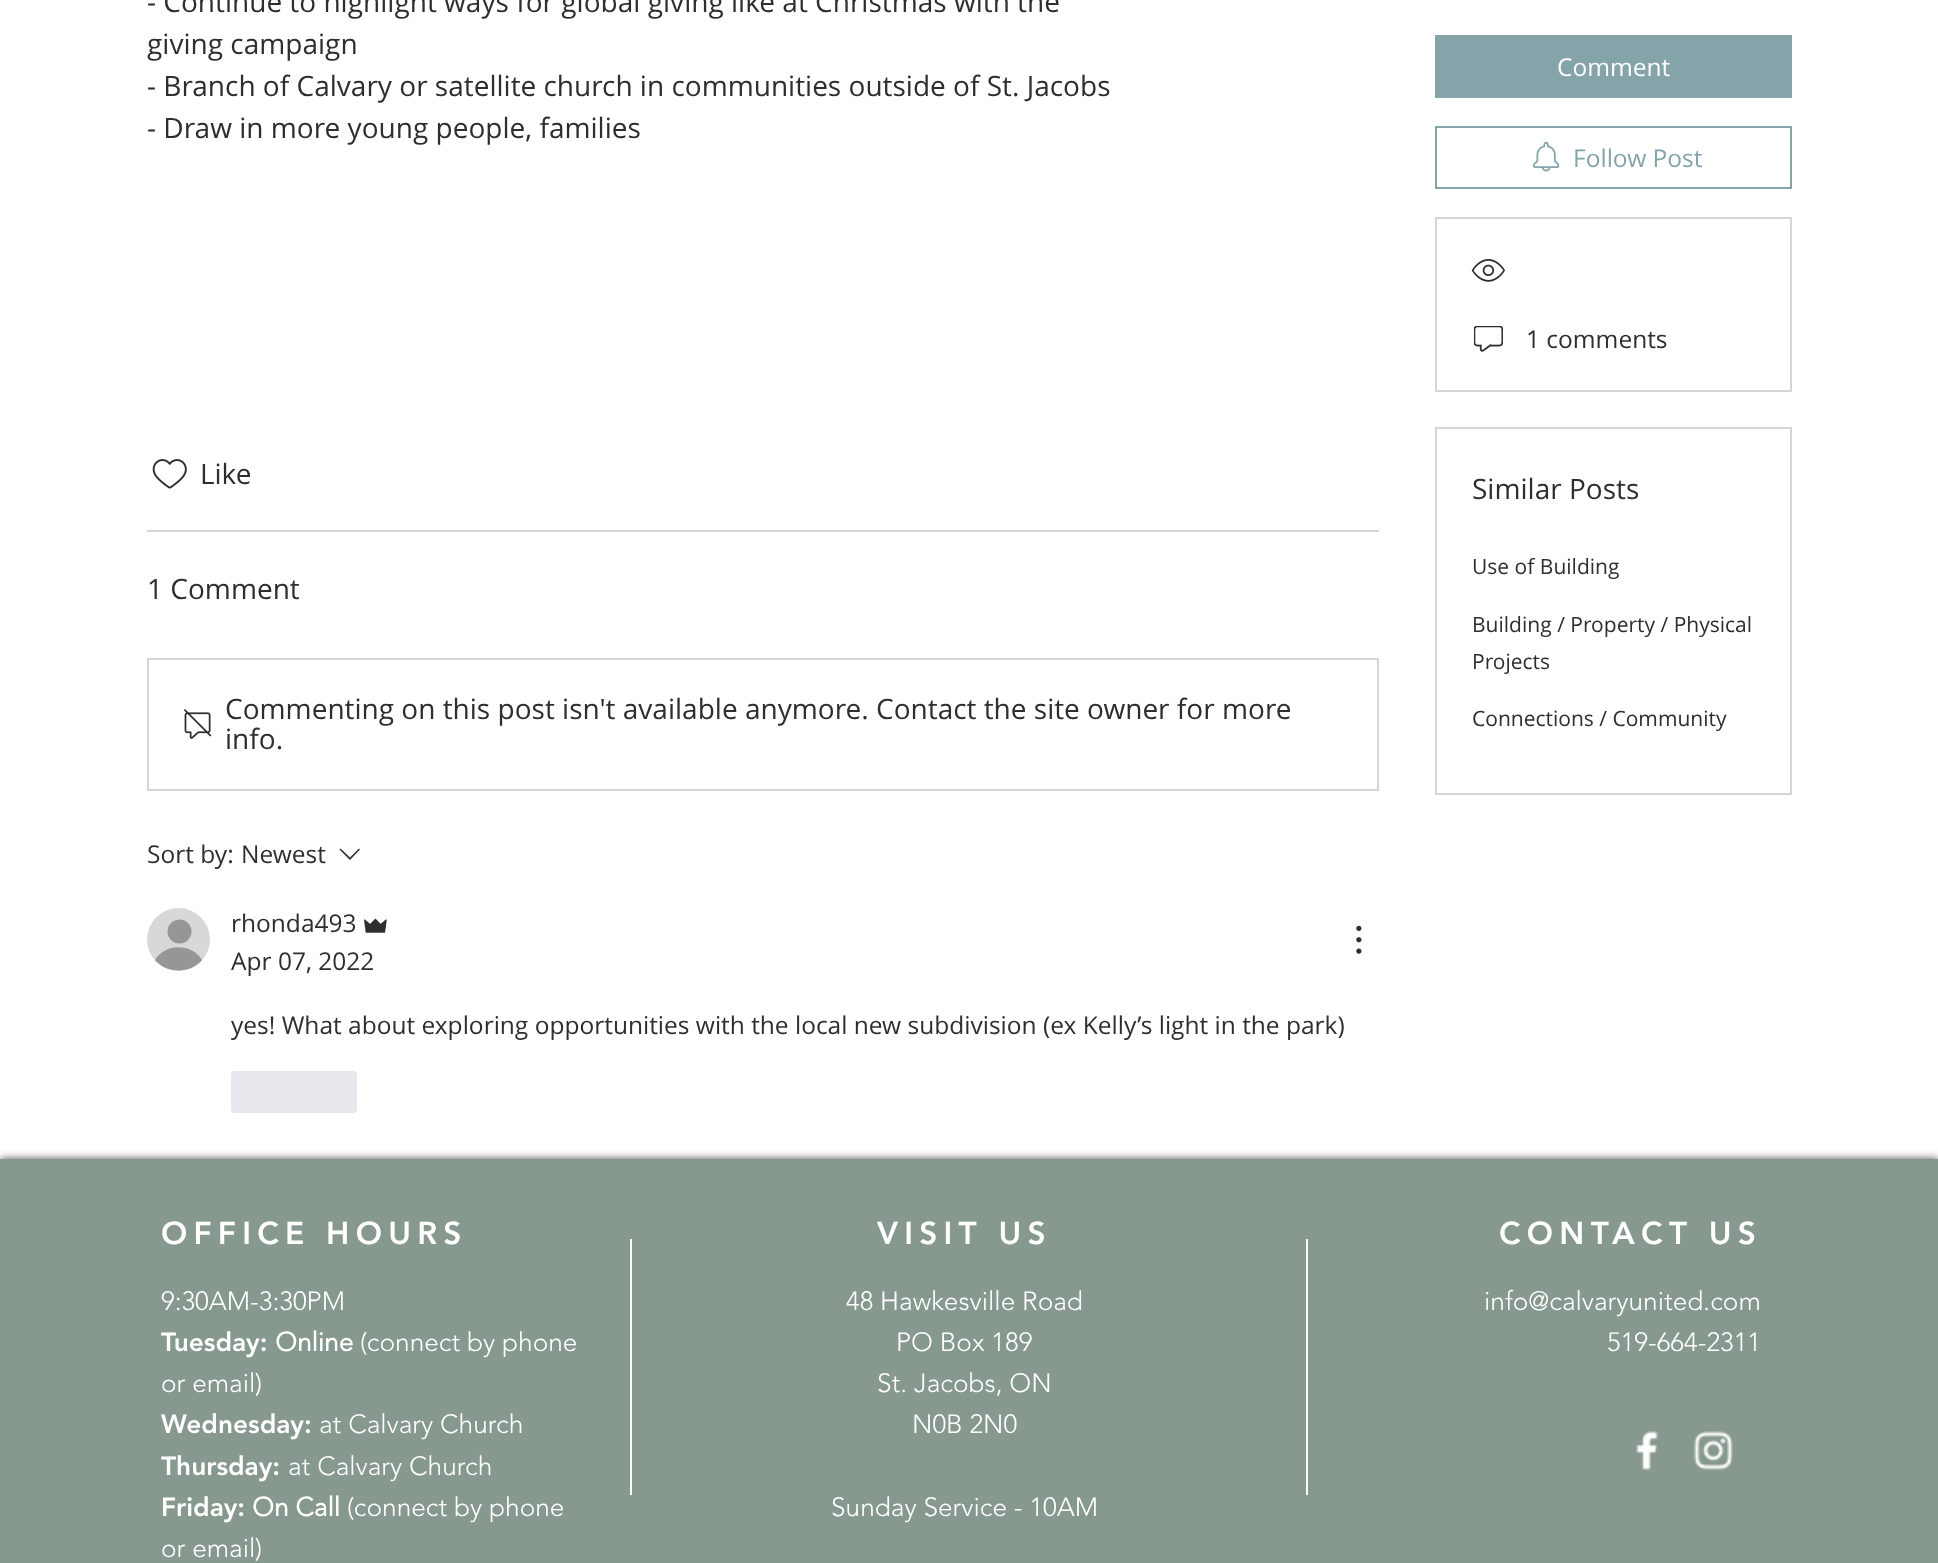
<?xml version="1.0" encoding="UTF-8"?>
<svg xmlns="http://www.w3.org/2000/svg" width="1938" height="1563">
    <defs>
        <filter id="blur1" x="-50%" y="-200%" width="200%" height="500%"><feGaussianBlur stdDeviation="4.5"/></filter>
    </defs>
    <rect width="100%" height="100%" fill="#FFFFFF"/>
    <text font-family="Open Sans" font-size="28" fill="#2F2E2E">
        <tspan x="147" y="12">- Continue to highlight ways for global giving like at Christmas with the</tspan>
        <tspan x="147" y="54">giving campaign</tspan>
        <tspan x="147" y="96">- Branch of Calvary or satellite church in communities outside of St. Jacobs</tspan>
        <tspan x="147" y="138">- Draw in more young people, families</tspan>
    </text>
    <image x="152" y="459" width="35" height="30" href="img_01.png"/>
    <text x="200" y="484" font-family="Open Sans" font-size="28" fill="#2F2E2E">Like</text>
    <rect x="147" y="530" width="1232" height="2" fill="#D5D5D5"/>
    <text x="147" y="599" font-family="Open Sans" font-size="28" fill="#2F2E2E">1 Comment</text>
    <rect x="148" y="659" width="1230" height="131" fill="none" stroke="#D5D5D5" stroke-width="2"/>
    <image x="184" y="709" width="28" height="30" href="img_02.png"/>
    <text font-family="Open Sans" font-size="28" fill="#2F2E2E">
        <tspan x="225" y="719">Commenting on this post isn't available anymore. Contact the site owner for more</tspan>
        <tspan x="225" y="749">info.</tspan>
    </text>
    <text x="147" y="863" font-family="Open Sans" font-size="24.5" fill="#2F2E2E">Sort by:</text>
    <text x="241" y="863" font-family="Open Sans" font-size="24.5" fill="#2F2E2E">Newest</text>
    <path d="M 359 848.5 L 360 849.5 L 350 860 L 339.5 849.5 L 340.5 848.5 L 350 857.5 Z" fill="#2F2E2E" fill-rule="evenodd"/>
    <circle cx="178.5" cy="939.5" r="31.5" fill="#D8D8D8"/>
    <circle cx="179.5" cy="931.5" r="12" fill="#969696"/>
    <path d="M 202 960 C 190 974 167 974 155 960 C 165 943 192 943 202 960 Z" fill="#969696"/>
    <text x="231" y="932" font-family="Open Sans" font-size="24.5" fill="#2F2E2E">rhonda493</text>
    <image x="364" y="918" width="23" height="15" href="img_03.png"/>
    <text x="231" y="970" font-family="Open Sans" font-size="24.5" fill="#2F2E2E">Apr 07, 2022</text>
    <image x="1356" y="925" width="6" height="29" href="img_04.png"/>
    <text x="231" y="1034" font-family="Open Sans" font-size="24.5" fill="#2F2E2E">yes! What about exploring opportunities with the local new subdivision (ex Kelly’s light in the park)</text>
    <rect x="231" y="1071" width="126" height="42" rx="4" fill="#E7E8ED"/>
    <rect x="1435" y="35" width="357" height="63" fill="#84A4A9"/>
    <text x="1557" y="76" font-family="Open Sans" font-size="24.5" fill="#FFFFFF">Comment</text>
    <rect x="1436" y="127" width="355" height="61" fill="none" stroke="#84A4A9" stroke-width="2"/>
    <image x="1533" y="141" width="27" height="31" href="img_05.png"/>
    <text x="1573" y="167" font-family="Open Sans" font-size="24.5" fill="#84A4A9">Follow Post</text>
    <rect x="1436" y="218" width="355" height="173" fill="none" stroke="#D5D5D5" stroke-width="2"/>
    <image x="1471" y="259" width="34" height="23" href="img_06.png"/>
    <image x="1474" y="326" width="29" height="26" href="img_07.png"/>
    <text x="1526" y="348" font-family="Open Sans" font-size="24.5" fill="#2F2E2E">1 comments</text>
    <rect x="1436" y="428" width="355" height="366" fill="none" stroke="#D5D5D5" stroke-width="2"/>
    <text x="1472" y="499" font-family="Open Sans" font-size="28" fill="#2F2E2E">Similar Posts</text>
    <text x="1472" y="574" font-family="Open Sans" font-size="21" fill="#2F2E2E">Use of Building</text>
    <text font-family="Open Sans" font-size="21" fill="#2F2E2E">
        <tspan x="1472" y="632">Building / Property / Physical</tspan>
        <tspan x="1472" y="669">Projects</tspan>
    </text>
    <text x="1472" y="726" font-family="Open Sans" font-size="21" fill="#2F2E2E">Connections / Community</text>
    <rect x="0" y="1159" width="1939" height="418" fill="#000000" fill-opacity="0.7" filter="url(#blur1)"/>
    <rect x="0" y="1159" width="1938" height="404" fill="#87998F"/>
    <text x="161" y="1244" font-family="'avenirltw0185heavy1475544'" font-size="31.5" font-weight="900" letter-spacing="6.25" fill="#FFFFFF">OFFICE HOURS</text>
    <text x="877" y="1244" font-family="'avenirltw0185heavy1475544'" font-size="31.5" font-weight="900" letter-spacing="6.25" fill="#FFFFFF">VISIT US</text>
    <text x="1499" y="1244" font-family="'avenirltw0185heavy1475544'" font-size="31.5" font-weight="900" letter-spacing="6.25" fill="#FFFFFF">CONTACT US</text>
    <text x="161" y="1310" font-family="'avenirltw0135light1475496'" font-size="26.25" font-weight="300" fill="#FFFFFF">9:30AM-3:30PM</text>
    <text x="161" y="1351" font-family="'avenirltw0185heavy1475544'" font-size="26.25" font-weight="900" fill="#FFFFFF">Tuesday:</text>
    <text x="275" y="1351" font-family="'avenirltw0135light1475496'" font-size="26.25" font-weight="700" fill="#FFFFFF">Online</text>
    <text x="360" y="1351" font-family="'avenirltw0135light1475496'" font-size="26.25" font-weight="300" fill="#FFFFFF">(connect by phone</text>
    <text x="161" y="1392" font-family="'avenirltw0135light1475496'" font-size="26.25" font-weight="300" fill="#FFFFFF">or email)</text>
    <text x="161" y="1433" font-family="'avenirltw0185heavy1475544'" font-size="26.25" font-weight="900" fill="#FFFFFF">Wednesday:</text>
    <text x="319" y="1433" font-family="'avenirltw0135light1475496'" font-size="26.25" font-weight="300" fill="#FFFFFF">at Calvary Church</text>
    <text x="161" y="1475" font-family="'avenirltw0185heavy1475544'" font-size="26.25" font-weight="900" fill="#FFFFFF">Thursday:</text>
    <text x="288" y="1475" font-family="'avenirltw0135light1475496'" font-size="26.25" font-weight="300" fill="#FFFFFF">at Calvary Church</text>
    <text x="161" y="1516" font-family="'avenirltw0185heavy1475544'" font-size="26.25" font-weight="900" fill="#FFFFFF">Friday:</text>
    <text x="252" y="1516" font-family="'avenirltw0135light1475496'" font-size="26.25" font-weight="700" fill="#FFFFFF">On Call</text>
    <text x="347" y="1516" font-family="'avenirltw0135light1475496'" font-size="26.25" font-weight="300" fill="#FFFFFF">(connect by phone</text>
    <text x="161" y="1557" font-family="'avenirltw0135light1475496'" font-size="26.25" font-weight="300" fill="#FFFFFF">or email)</text>
    <rect x="630" y="1239" width="2" height="256" fill="#FFFFFF"/>
    <text x="846" y="1310" font-family="'avenirltw0135light1475496'" font-size="26.25" font-weight="300" fill="#FFFFFF">48 Hawkesville Road</text>
    <text x="896" y="1351" font-family="'avenirltw0135light1475496'" font-size="26.25" font-weight="300" fill="#FFFFFF">PO Box 189</text>
    <text x="877" y="1392" font-family="'avenirltw0135light1475496'" font-size="26.25" font-weight="300" fill="#FFFFFF">St. Jacobs, ON</text>
    <text x="912" y="1433" font-family="'avenirltw0135light1475496'" font-size="26.25" font-weight="300" fill="#FFFFFF">N0B 2N0</text>
    <text x="831" y="1516" font-family="'avenirltw0135light1475496'" font-size="26.25" font-weight="300" fill="#FFFFFF">Sunday Service - 10AM</text>
    <rect x="1306" y="1239" width="2" height="256" fill="#FFFFFF"/>
    <text x="1484" y="1310" font-family="'avenirltw0135light1475496'" font-size="26.25" font-weight="300" fill="#FFFFFF">info@calvaryunited.com</text>
    <text x="1607" y="1351" font-family="'avenirltw0135light1475496'" font-size="26.25" font-weight="300" fill="#FFFFFF">519-664-2311</text>
    <image x="1636" y="1431" width="22" height="40" href="img_08.png"/>
    <image x="1693" y="1431" width="40" height="40" href="img_09.png"/>
</svg>
